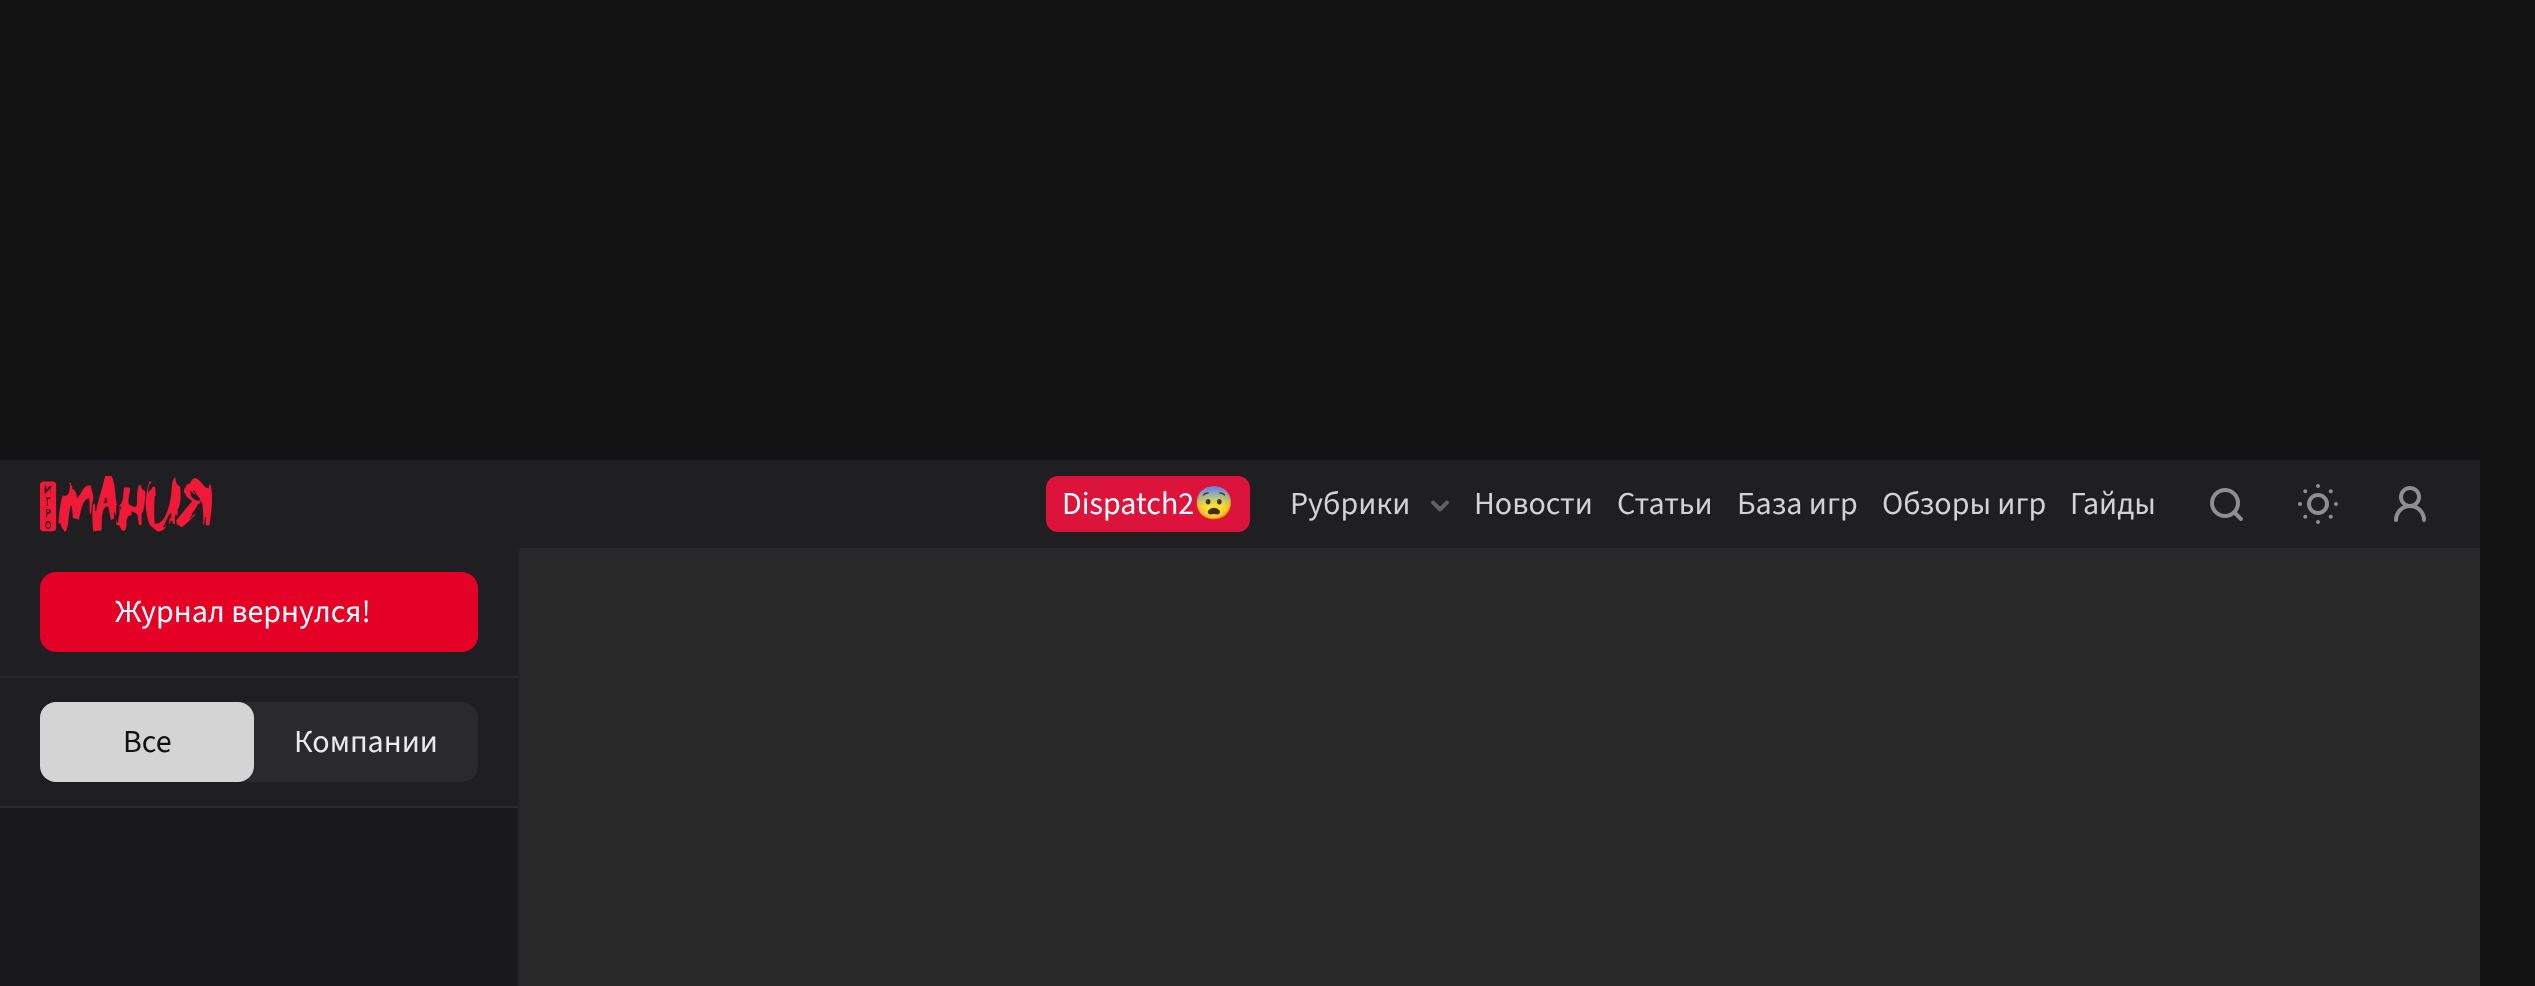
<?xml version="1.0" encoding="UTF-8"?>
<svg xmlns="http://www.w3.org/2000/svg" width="2535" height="986">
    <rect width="100%" height="100%" fill="#131314"/>
    <rect x="0" y="460" width="2480" height="88" fill="#1F1F21"/>
    <image x="40" y="476" width="172" height="56" href="img_01.png"/>
    <rect x="1046" y="476" width="204" height="56" rx="12" fill="#DC143C"/>
    <text x="1062" y="514" font-family="'Source Sans 3'" font-size="32" fill="#FFFFFF">Dispatch2</text>
    <text x="1194" y="514" font-family="Noto Color Emoji" font-size="32" fill="#FFFFFF">😨</text>
    <text x="1290" y="514" font-family="'Source Sans 3'" font-size="32" fill="#D2D2D3">Рубрики</text>
    <image x="1431" y="500" width="18" height="12" href="img_02.png"/>
    <text x="1474" y="514" font-family="'Source Sans 3'" font-size="32" fill="#D2D2D3">Новости</text>
    <text x="1617" y="514" font-family="'Source Sans 3'" font-size="32" fill="#D2D2D3">Статьи</text>
    <text x="1737" y="514" font-family="'Source Sans 3'" font-size="32" fill="#D2D2D3">База игр</text>
    <text x="1882" y="514" font-family="'Source Sans 3'" font-size="32" fill="#D2D2D3">Обзоры игр</text>
    <text x="2070" y="514" font-family="'Source Sans 3'" font-size="32" fill="#D2D2D3">Гайды</text>
    <image x="2210" y="488" width="33" height="33" href="img_03.png"/>
    <image x="2298" y="484" width="40" height="40" href="img_04.png"/>
    <image x="2394" y="486" width="32" height="36" href="img_05.png"/>
    <rect x="0" y="808" width="518" height="178" fill="#19191C"/>
    <rect x="518" y="548" width="2" height="438" fill="#252527"/>
    <rect x="0" y="548" width="518" height="128" fill="#1F1F21"/>
    <rect x="0" y="676" width="518" height="2" fill="#2A2A2C"/>
    <rect x="40" y="572" width="438" height="80" rx="16" fill="#E50026"/>
    <text x="115" y="622" font-family="'Source Sans 3'" font-size="32" fill="#FFFFFF">Журнал вернулся!</text>
    <rect x="0" y="678" width="518" height="128" fill="#1F1F21"/>
    <rect x="0" y="806" width="518" height="2" fill="#2A2A2C"/>
    <rect x="40" y="702" width="438" height="80" rx="16" fill="#2A2A2C"/>
    <rect x="40" y="702" width="214" height="80" rx="16" fill="#FFFFFF" fill-opacity="0.8"/>
    <text x="123" y="752" font-family="'Source Sans 3'" font-size="32" fill="#111112">Все</text>
    <text x="294" y="752" font-family="'Source Sans 3'" font-size="32" fill="#EAEAEA">Компании</text>
    <rect x="520" y="548" width="1960" height="438" fill="#29292A"/>
</svg>
